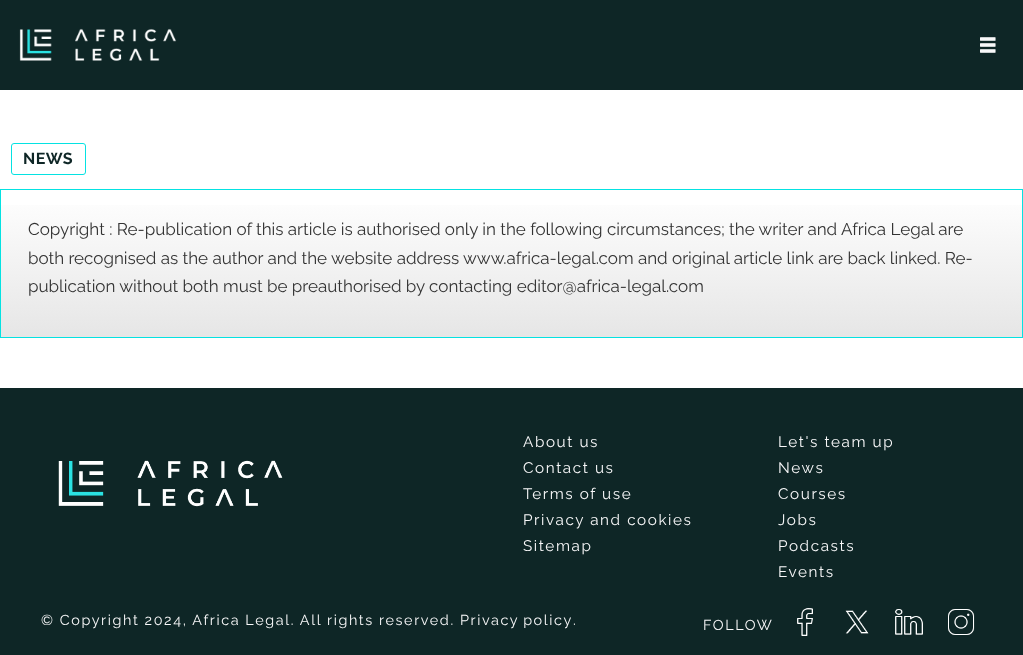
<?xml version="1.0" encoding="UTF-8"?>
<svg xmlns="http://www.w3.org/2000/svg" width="1023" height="655">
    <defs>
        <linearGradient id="g1" gradientUnits="userSpaceOnUse" x1="512" y1="190" x2="512" y2="337"><stop offset="0" stop-color="#FFFFFF"/><stop offset="1" stop-color="#E6E6E6"/></linearGradient>
    </defs>
    <rect width="100%" height="100%" fill="#FFFFFF"/>
    <rect x="0" y="0" width="1023" height="90" fill="#0E2626"/>
    <image x="19" y="28" width="158" height="33" href="img_01.png"/>
    <image x="980" y="37" width="16" height="16" href="img_02.png"/>
    <rect x="11.5" y="143.5" width="74" height="31" rx="2.5" fill="none" stroke="#05E2E2"/>
    <text x="23" y="164" font-family="Raleway" font-size="16" font-weight="700" letter-spacing="0.5" fill="#0E2626">NEWS</text>
    <rect x="1" y="205" width="1021" height="132" fill="url(#g1)"/>
    <rect x="0.5" y="189.5" width="1022" height="148" fill="none" stroke="#05E2E2"/>
    <text font-family="Raleway" font-size="17" fill="#333333">
        <tspan x="28" y="235">Copyright : Re-publication of this article is authorised only in the following circumstances; the writer and Africa Legal are</tspan>
        <tspan x="28" y="264">both recognised as the author and the website address www.africa-legal.com and original article link are back linked. Re-</tspan>
        <tspan x="28" y="292">publication without both must be preauthorised by contacting editor@africa-legal.com</tspan>
    </text>
    <rect x="0" y="388" width="1023" height="267" fill="#0E2626"/>
    <image x="58" y="460" width="225" height="47" href="img_03.png"/>
    <text font-family="Raleway" font-size="15.25" letter-spacing="1.6" fill="#F8F8F9">
        <tspan x="523" y="447">About us</tspan>
        <tspan x="523" y="473">Contact us</tspan>
        <tspan x="523" y="499">Terms of use</tspan>
        <tspan x="523" y="525">Privacy and cookies</tspan>
        <tspan x="523" y="551">Sitemap</tspan>
    </text>
    <text font-family="Raleway" font-size="15.25" letter-spacing="1.6" fill="#F8F8F9">
        <tspan x="778" y="447">Let's team up</tspan>
        <tspan x="778" y="473">News</tspan>
        <tspan x="778" y="499">Courses</tspan>
        <tspan x="778" y="525">Jobs</tspan>
        <tspan x="778" y="551">Podcasts</tspan>
        <tspan x="778" y="577">Events</tspan>
    </text>
    <text x="41" y="625" font-family="Raleway" font-size="14.4" letter-spacing="1.6" fill="#F8F8F9">© Copyright 2024, Africa Legal. All rights reserved.</text>
    <text x="460" y="625" word-spacing="-1" font-family="Raleway" font-size="14.4" letter-spacing="1.6" fill="#F8F8F9">Privacy policy</text>
    <text x="573" y="625" font-family="Raleway" font-size="14.4" letter-spacing="1.6" fill="#F8F8F9">.</text>
    <text x="703" y="630" font-family="Raleway" font-size="14.4" letter-spacing="1.6" fill="#F8F8F9">FOLLOW</text>
    <image x="797" y="608" width="16" height="28" href="img_04.png"/>
    <image x="845" y="610" width="24" height="24" href="img_05.png"/>
    <image x="895" y="609" width="28" height="26" href="img_06.png"/>
    <image x="948" y="609" width="27" height="26" href="img_07.png"/>
</svg>
